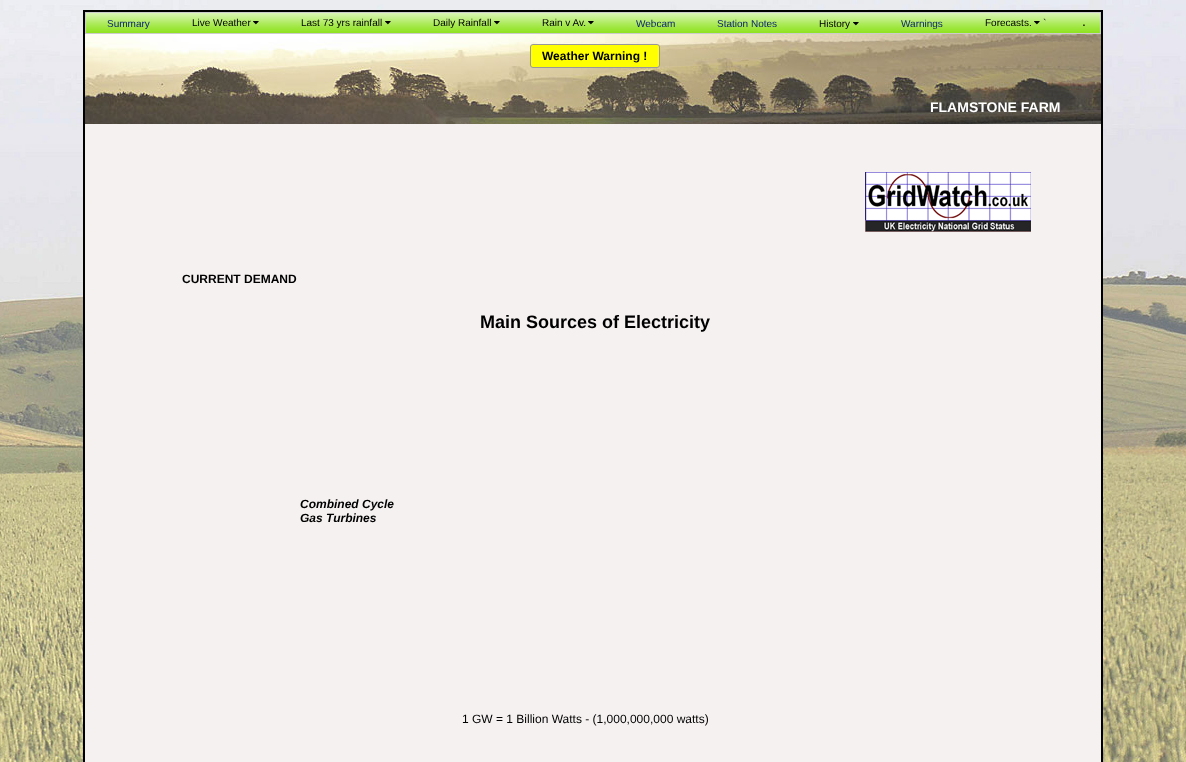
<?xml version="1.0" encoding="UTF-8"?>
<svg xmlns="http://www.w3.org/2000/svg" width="1186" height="762">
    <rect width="100%" height="100%" fill="#FFFFFF"/>
    <image x="0" y="0" width="1186" height="762" href="img_01.png"/>
    <rect x="85" y="124" width="1016" height="638" fill="#F6F1F1"/>
    <rect x="84" y="11" width="1018" height="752" fill="none" stroke="#000000" stroke-width="2"/>
    <image x="86" y="13" width="1014" height="20" href="img_02.png"/>
    <rect x="85.5" y="12.5" width="1015" height="21" fill="none" stroke="#CCCCCC"/>
    <text x="107" y="27" font-family="Liberation Sans" font-size="10" fill="#0D2474">Summary</text>
    <text x="192" y="26" font-family="Liberation Sans" font-size="10" fill="#000000">Live Weather</text>
    <image x="253" y="21" width="6" height="4" href="img_03.png"/>
    <text x="301" y="26" font-family="Liberation Sans" font-size="10" fill="#000000">Last 73 yrs rainfall</text>
    <image x="385" y="21" width="6" height="4" href="img_03.png"/>
    <text x="433" y="26" font-family="Liberation Sans" font-size="10" fill="#000000">Daily Rainfall</text>
    <image x="494" y="21" width="6" height="4" href="img_03.png"/>
    <text x="542" y="26" font-family="Liberation Sans" font-size="10" fill="#000000">Rain v Av.</text>
    <image x="588" y="21" width="6" height="4" href="img_03.png"/>
    <text x="636" y="27" font-family="Liberation Sans" font-size="10" fill="#0D2474">Webcam</text>
    <text x="717" y="27" font-family="Liberation Sans" font-size="10" fill="#0D2474">Station Notes</text>
    <text x="819" y="27" font-family="Liberation Sans" font-size="10" fill="#000000">History</text>
    <image x="853" y="22" width="6" height="4" href="img_04.png"/>
    <text x="901" y="27" font-family="Liberation Sans" font-size="10" fill="#0D2474">Warnings</text>
    <text x="985" y="26" font-family="Liberation Sans" font-size="10" fill="#000000">Forecasts.</text>
    <image x="1034" y="21" width="6" height="4" href="img_03.png"/>
    <text x="1043" y="26" font-family="Liberation Sans" font-size="10" fill="#000000">`</text>
    <text x="1082" y="26" font-family="Liberation Sans" font-size="14" fill="#000000">.</text>
    <image x="85" y="34" width="1016" height="90" href="img_05.png"/>
    <rect x="530.5" y="44.5" width="129" height="23" rx="2.5" fill="#FFFF00" stroke="#999999"/>
    <text x="542" y="60" font-family="Liberation Sans" font-size="12" font-weight="700" fill="#000000">Weather Warning !</text>
    <text x="930" y="112" font-family="Liberation Sans" font-size="14" font-weight="700" fill="#FFFFFF">FLAMSTONE FARM</text>
    <image x="865" y="172" width="166" height="60" href="img_06.png"/>
    <text x="182" y="283" font-family="Liberation Sans" font-size="12" font-weight="700" fill="#000000">CURRENT DEMAND</text>
    <text x="480" y="328" font-family="Liberation Sans" font-size="18" font-weight="700" fill="#000000">Main Sources of Electricity</text>
    <text font-family="Liberation Sans" font-size="12" font-weight="700" font-style="italic" fill="#000000">
        <tspan x="300" y="508">Combined Cycle</tspan>
        <tspan x="300" y="522">Gas Turbines</tspan>
    </text>
    <text x="462" y="723" font-family="Liberation Sans" font-size="12" fill="#000000">1 GW = 1 Billion Watts - (1,000,000,000 watts)</text>
</svg>
